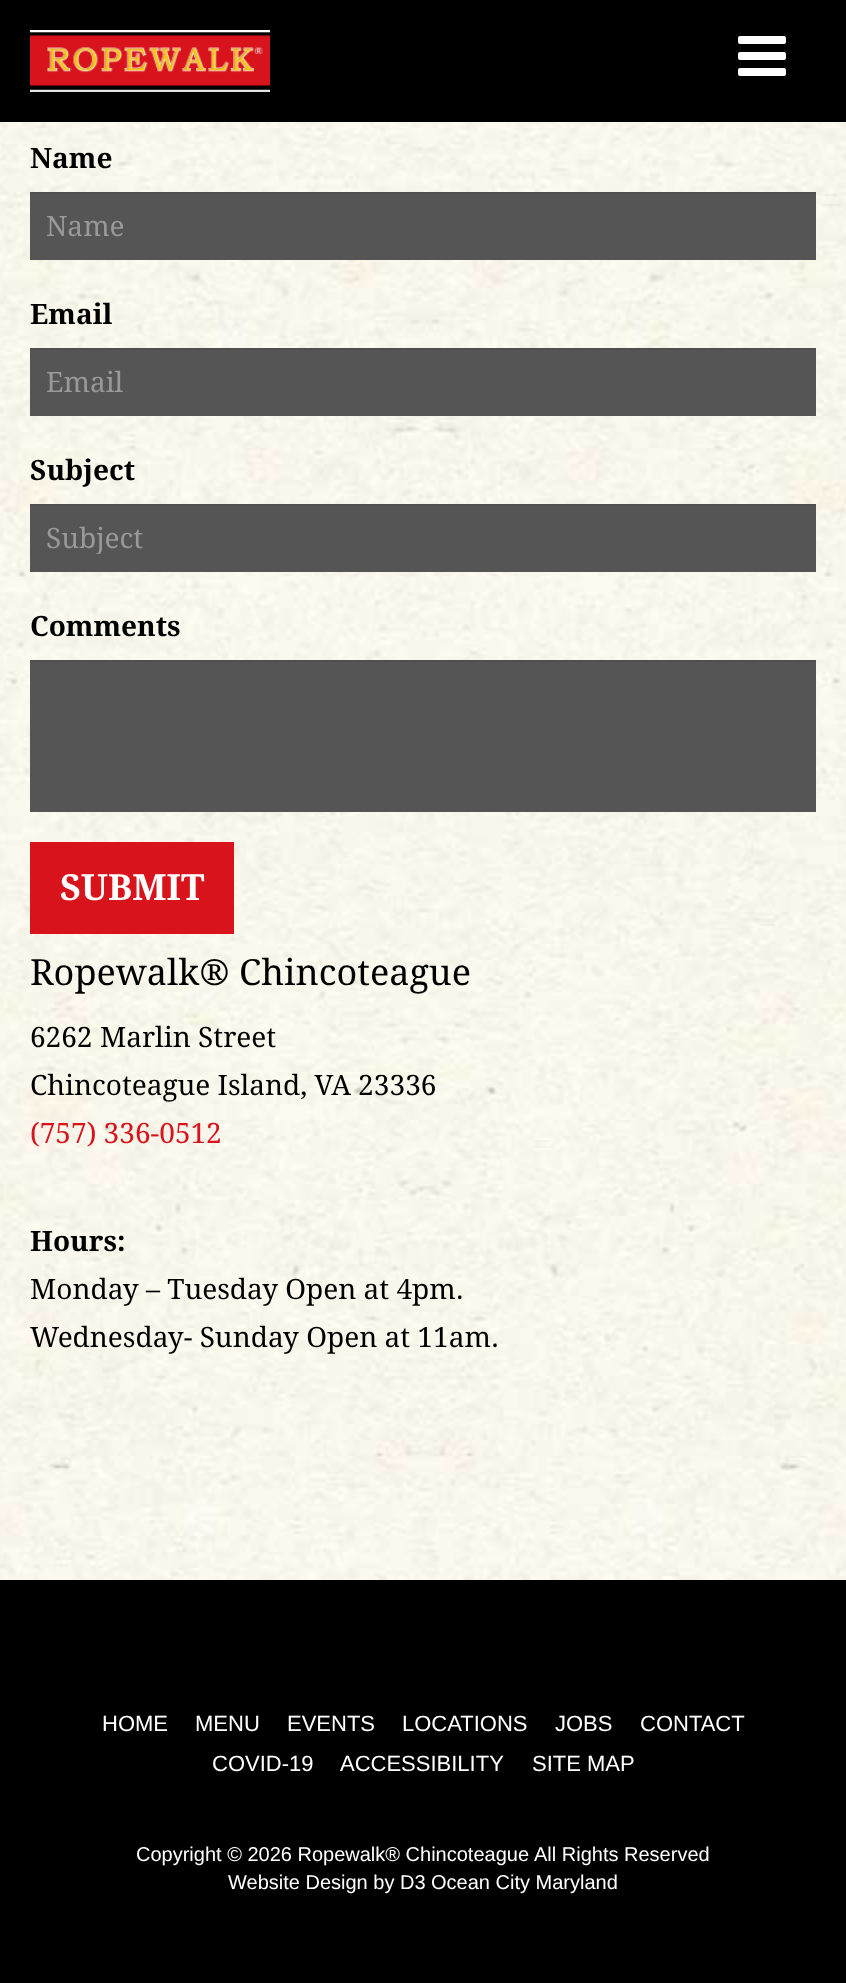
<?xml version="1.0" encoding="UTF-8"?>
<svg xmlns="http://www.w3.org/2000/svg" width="846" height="1983">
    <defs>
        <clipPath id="clip1"><rect x="46" y="522" width="754" height="32"/></clipPath>
    </defs>
    <rect width="100%" height="100%" fill="#000000"/>
    <image x="30" y="30" width="240" height="62" href="img_01.png"/>
    <image x="738" y="36" width="48" height="40" href="img_02.png"/>
    <image x="0" y="122" width="846" height="1458" href="img_03.png"/>
    <text x="30" y="168" font-family="Droid Serif" font-size="28" font-weight="700" fill="#000000">Name</text>
    <rect x="30" y="194" width="786" height="66" fill="#555555"/>
    <rect x="30" y="192" width="786" height="2" fill="#4F4F4F"/>
    <text x="46" y="236" font-family="Droid Serif" font-size="28" fill="#999999">Name</text>
    <text x="30" y="324" font-family="Droid Serif" font-size="28" font-weight="700" fill="#000000">Email</text>
    <rect x="30" y="350" width="786" height="66" fill="#555555"/>
    <rect x="30" y="348" width="786" height="2" fill="#4F4F4F"/>
    <text x="46" y="392" font-family="Droid Serif" font-size="28" fill="#999999">Email</text>
    <text x="30" y="480" font-family="Droid Serif" font-size="28" font-weight="700" fill="#000000">Subject</text>
    <rect x="30" y="506" width="786" height="66" fill="#555555"/>
    <rect x="30" y="504" width="786" height="2" fill="#4F4F4F"/>
    <g clip-path="url(#clip1)">
        <text x="46" y="548" font-family="Droid Serif" font-size="28" fill="#999999">Subject</text>
    </g>
    <text x="30" y="636" font-family="Droid Serif" font-size="28" font-weight="700" fill="#000000">Comments</text>
    <rect x="30" y="662" width="786" height="150" fill="#555555"/>
    <rect x="30" y="660" width="786" height="2" fill="#4F4F4F"/>
    <rect x="30" y="842" width="204" height="92" fill="#D8131B"/>
    <text x="60" y="900" font-family="Droid Serif" font-size="36" font-weight="700" fill="#FFFFFF">SUBMIT</text>
    <text x="30" y="985" font-family="Droid Serif" font-size="36" fill="#000000">Ropewalk® Chincoteague</text>
    <text font-family="Droid Serif" font-size="28" fill="#000000">
        <tspan x="30" y="1047">6262 Marlin Street</tspan>
        <tspan x="30" y="1095">Chincoteague Island, VA 23336</tspan>
    </text>
    <text x="30" y="1143" font-family="Droid Serif" font-size="28" fill="#D8131B">(757) 336-0512</text>
    <text x="30" y="1251" font-family="Droid Serif" font-size="28" font-weight="700" fill="#000000">Hours:</text>
    <text font-family="Droid Serif" font-size="28" fill="#000000">
        <tspan x="30" y="1299">Monday – Tuesday Open at 4pm.</tspan>
        <tspan x="30" y="1347">Wednesday- Sunday Open at 11am.</tspan>
    </text>
    <text x="102" y="1731" font-family="Liberation Sans" font-size="22" fill="#FFFFFF">HOME</text>
    <text x="195" y="1731" font-family="Liberation Sans" font-size="22" fill="#FFFFFF">MENU</text>
    <text x="287" y="1731" font-family="Liberation Sans" font-size="22" fill="#FFFFFF">EVENTS</text>
    <text x="402" y="1731" font-family="Liberation Sans" font-size="22" fill="#FFFFFF">LOCATIONS</text>
    <text x="555" y="1731" font-family="Liberation Sans" font-size="22" fill="#FFFFFF">JOBS</text>
    <text x="640" y="1731" font-family="Liberation Sans" font-size="22" fill="#FFFFFF">CONTACT</text>
    <text x="212" y="1771" font-family="Liberation Sans" font-size="22" fill="#FFFFFF">COVID-19</text>
    <text x="340" y="1771" font-family="Liberation Sans" font-size="22" fill="#FFFFFF">ACCESSIBILITY</text>
    <text x="532" y="1771" font-family="Liberation Sans" font-size="22" fill="#FFFFFF">SITE MAP</text>
    <text x="136" y="1861" font-family="Liberation Sans" font-size="20" fill="#FFFFFF">Copyright © 2026 Ropewalk® Chincoteague</text>
    <text x="534" y="1861" font-family="Liberation Sans" font-size="20" fill="#FFFFFF">All Rights Reserved</text>
    <text x="228" y="1889" font-family="Liberation Sans" font-size="20" fill="#FFFFFF">Website Design by D3 Ocean City Maryland</text>
</svg>
